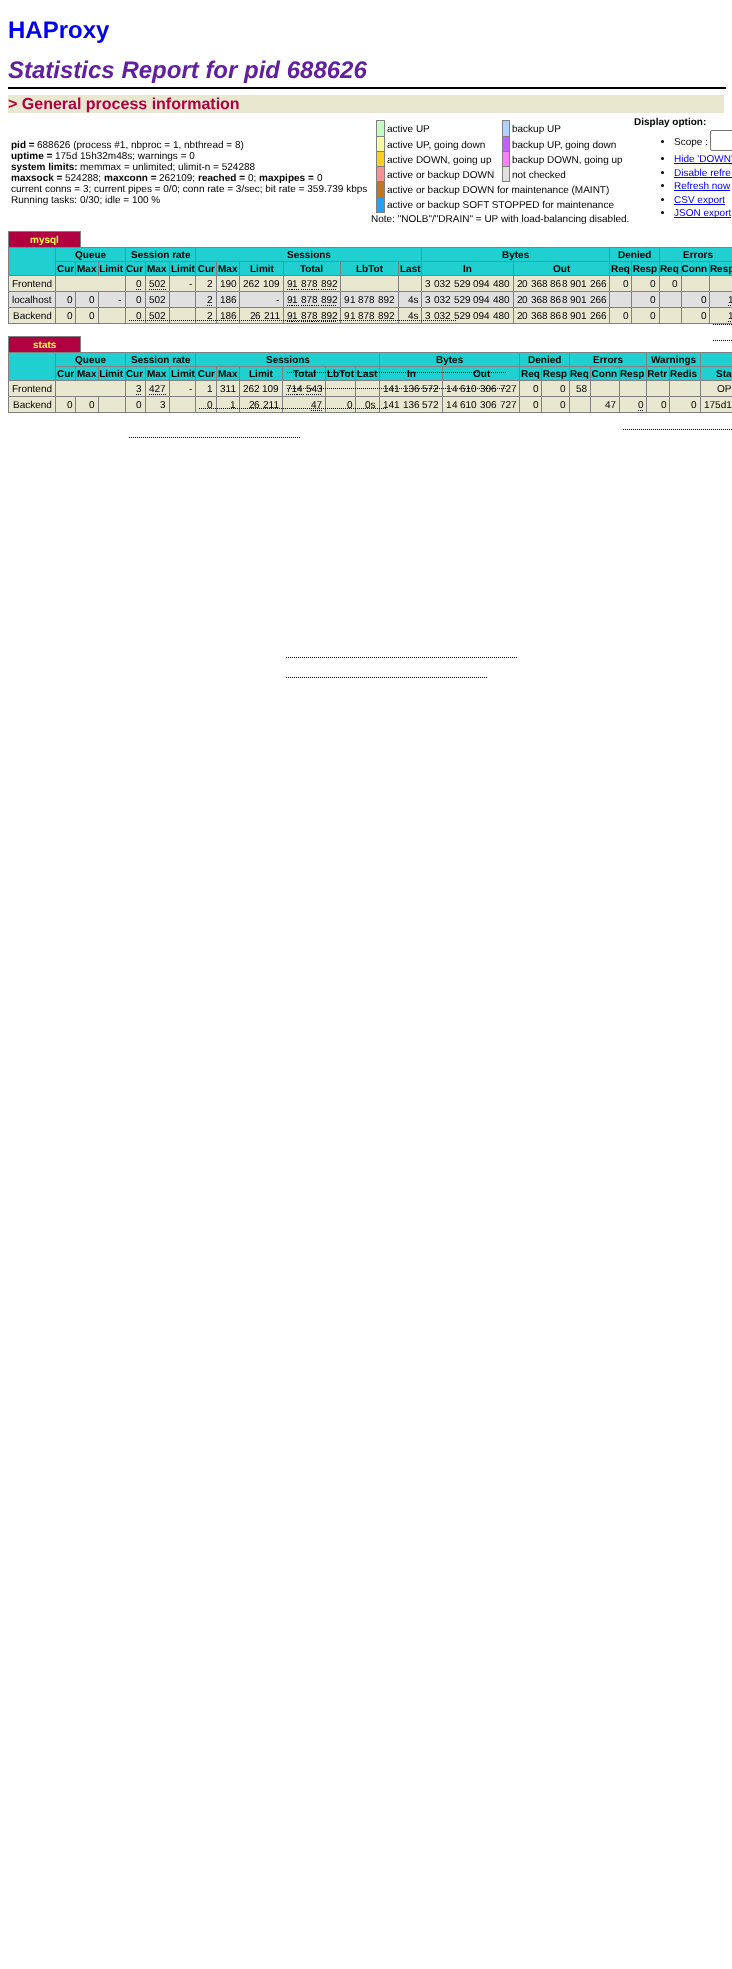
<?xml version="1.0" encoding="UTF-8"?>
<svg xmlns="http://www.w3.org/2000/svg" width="732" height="1969">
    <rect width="100%" height="100%" fill="#FFFFFF"/>
    <text x="8" y="38" font-family="Liberation Sans" font-size="24" font-weight="700" fill="#0000EE">HAProxy</text>
    <text x="8" y="78" font-family="Liberation Sans" font-size="24" font-weight="700" font-style="italic" fill="#6020A0">Statistics Report for pid 688626</text>
    <rect x="8" y="87" width="718" height="1" fill="#000000"/>
    <rect x="725" y="87" width="1" height="2" fill="#000000"/>
    <rect x="8" y="88" width="718" height="1" fill="#000000"/>
    <rect x="8" y="95" width="716" height="18" fill="#E8E8D0"/>
    <text x="8" y="109" font-family="Liberation Sans" font-size="16" font-weight="700" fill="#B00040">&gt; General process information</text>
    <text x="11" y="148" font-family="Liberation Sans" font-size="10" font-weight="700" fill="#000000">pid =</text>
    <text x="37" y="148" font-family="Liberation Sans" font-size="10" fill="#000000">688626 (process #1, nbproc = 1, nbthread = 8)</text>
    <text x="11" y="159" font-family="Liberation Sans" font-size="10" font-weight="700" fill="#000000">uptime =</text>
    <text x="55" y="159" font-family="Liberation Sans" font-size="10" fill="#000000">175d 15h32m48s; warnings = 0</text>
    <text x="11" y="170" font-family="Liberation Sans" font-size="10" font-weight="700" fill="#000000">system limits:</text>
    <text x="80" y="170" font-family="Liberation Sans" font-size="10" fill="#000000">memmax = unlimited; ulimit-n = 524288</text>
    <text x="11" y="181" font-family="Liberation Sans" font-size="10" font-weight="700" fill="#000000">maxsock =</text>
    <text x="65" y="181" font-family="Liberation Sans" font-size="10" fill="#000000">524288;</text>
    <text x="104" y="181" font-family="Liberation Sans" font-size="10" font-weight="700" fill="#000000">maxconn =</text>
    <text x="159" y="181" font-family="Liberation Sans" font-size="10" fill="#000000">262109;</text>
    <text x="198" y="181" font-family="Liberation Sans" font-size="10" font-weight="700" fill="#000000">reached =</text>
    <text x="248" y="181" font-family="Liberation Sans" font-size="10" fill="#000000">0;</text>
    <text x="259" y="181" font-family="Liberation Sans" font-size="10" font-weight="700" fill="#000000">maxpipes =</text>
    <text x="317" y="181" font-family="Liberation Sans" font-size="10" fill="#000000">0</text>
    <text font-family="Liberation Sans" font-size="10" fill="#000000">
        <tspan x="11" y="192">current conns = 3; current pipes = 0/0; conn rate = 3/sec; bit rate = 359.739 kbps</tspan>
        <tspan x="11" y="203">Running tasks: 0/30; idle = 100 %</tspan>
    </text>
    <rect x="377" y="121" width="7" height="16" fill="#C0FFC0"/>
    <rect x="376" y="120" width="9" height="1" fill="#808080"/>
    <rect x="376" y="136" width="9" height="1" fill="#808080"/>
    <rect x="377" y="137" width="7" height="15" fill="#FFFFA0"/>
    <rect x="376" y="151" width="9" height="1" fill="#808080"/>
    <rect x="377" y="152" width="7" height="15" fill="#FFD020"/>
    <rect x="376" y="166" width="9" height="1" fill="#808080"/>
    <rect x="377" y="167" width="7" height="15" fill="#FF9090"/>
    <rect x="376" y="181" width="9" height="1" fill="#808080"/>
    <rect x="377" y="197" width="7" height="15" fill="#20A0FF"/>
    <rect x="376" y="197" width="9" height="1" fill="#808080"/>
    <rect x="384" y="197" width="1" height="16" fill="#808080"/>
    <rect x="384" y="181" width="1" height="17" fill="#808080"/>
    <rect x="384" y="166" width="1" height="16" fill="#808080"/>
    <rect x="384" y="151" width="1" height="16" fill="#808080"/>
    <rect x="384" y="136" width="1" height="16" fill="#808080"/>
    <rect x="384" y="120" width="1" height="17" fill="#808080"/>
    <rect x="376" y="212" width="9" height="1" fill="#808080"/>
    <rect x="376" y="197" width="1" height="16" fill="#808080"/>
    <rect x="376" y="181" width="1" height="17" fill="#808080"/>
    <rect x="376" y="166" width="1" height="16" fill="#808080"/>
    <rect x="376" y="151" width="1" height="16" fill="#808080"/>
    <rect x="376" y="136" width="1" height="16" fill="#808080"/>
    <rect x="376" y="120" width="1" height="17" fill="#808080"/>
    <text x="387" y="132" font-family="Liberation Sans" font-size="10" fill="#000000">active UP</text>
    <rect x="503" y="121" width="6" height="16" fill="#B0D0FF"/>
    <rect x="502" y="120" width="8" height="1" fill="#808080"/>
    <rect x="502" y="136" width="8" height="1" fill="#808080"/>
    <rect x="503" y="137" width="6" height="15" fill="#C060FF"/>
    <rect x="502" y="151" width="8" height="1" fill="#808080"/>
    <rect x="503" y="152" width="6" height="15" fill="#FF80FF"/>
    <rect x="502" y="166" width="8" height="1" fill="#808080"/>
    <rect x="509" y="166" width="1" height="16" fill="#808080"/>
    <rect x="509" y="151" width="1" height="16" fill="#808080"/>
    <rect x="509" y="136" width="1" height="16" fill="#808080"/>
    <rect x="509" y="120" width="1" height="17" fill="#808080"/>
    <rect x="503" y="167" width="6" height="15" fill="#E0E0E0"/>
    <rect x="502" y="181" width="8" height="1" fill="#808080"/>
    <rect x="502" y="166" width="1" height="16" fill="#808080"/>
    <rect x="502" y="151" width="1" height="16" fill="#808080"/>
    <rect x="502" y="136" width="1" height="16" fill="#808080"/>
    <rect x="502" y="120" width="1" height="17" fill="#808080"/>
    <text x="512" y="132" font-family="Liberation Sans" font-size="10" fill="#000000">backup UP</text>
    <text x="387" y="148" font-family="Liberation Sans" font-size="10" fill="#000000">active UP, going down</text>
    <text x="512" y="148" font-family="Liberation Sans" font-size="10" fill="#000000">backup UP, going down</text>
    <text x="387" y="163" font-family="Liberation Sans" font-size="10" fill="#000000">active DOWN, going up</text>
    <text x="512" y="163" font-family="Liberation Sans" font-size="10" fill="#000000">backup DOWN, going up</text>
    <text x="387" y="178" font-family="Liberation Sans" font-size="10" fill="#000000">active or backup DOWN</text>
    <text x="512" y="178" font-family="Liberation Sans" font-size="10" fill="#000000">not checked</text>
    <rect x="377" y="182" width="7" height="15" fill="#C07820"/>
    <text font-family="Liberation Sans" font-size="10" fill="#000000">
        <tspan x="387" y="193">active or backup DOWN for maintenance (MAINT)</tspan>
        <tspan x="387" y="208">active or backup SOFT STOPPED for maintenance</tspan>
    </text>
    <text x="371" y="222" font-family="Liberation Sans" font-size="10" fill="#000000">Note: "NOLB"/"DRAIN" = UP with load-balancing disabled.</text>
    <text x="634" y="125" font-family="Liberation Sans" font-size="10" font-weight="700" fill="#000000">Display option:</text>
    <circle cx="662.5" cy="141.5" r="1.5" fill="#000000"/>
    <text x="674" y="145" font-family="Liberation Sans" font-size="10" fill="#000000">Scope :</text>
    <rect x="710.5" y="130.5" width="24" height="20" rx="1.5" fill="none" stroke="#767676"/>
    <circle cx="662.5" cy="158.5" r="1.5" fill="#000000"/>
    <text x="674" y="162" font-family="Liberation Sans" font-size="10" fill="#0000EE">Hide 'DOWN'</text>
    <rect x="674" y="163" width="58" height="1" fill="#0000EE"/>
    <circle cx="662.5" cy="172.5" r="1.5" fill="#000000"/>
    <text x="674" y="176" font-family="Liberation Sans" font-size="10" fill="#0000EE">Disable refre</text>
    <rect x="674" y="177" width="58" height="1" fill="#0000EE"/>
    <circle cx="662.5" cy="185.5" r="1.5" fill="#000000"/>
    <text x="674" y="189" font-family="Liberation Sans" font-size="10" fill="#0000EE">Refresh now</text>
    <rect x="674" y="190" width="56" height="1" fill="#0000EE"/>
    <circle cx="662.5" cy="199.5" r="1.5" fill="#000000"/>
    <rect x="674" y="204" width="51" height="1" fill="#0000EE"/>
    <text x="674" y="203" font-family="Liberation Sans" font-size="10" fill="#0000EE">CSV export</text>
    <circle cx="662.5" cy="212.5" r="1.5" fill="#000000"/>
    <rect x="674" y="217" width="57" height="1" fill="#0000EE"/>
    <text x="674" y="216" font-family="Liberation Sans" font-size="10" fill="#0000EE">JSON export</text>
    <rect x="9" y="232" width="71" height="15" fill="#B00040"/>
    <rect x="8" y="231" width="73" height="1" fill="#808080"/>
    <rect x="80" y="231" width="1" height="17" fill="#808080"/>
    <rect x="8" y="231" width="1" height="17" fill="#808080"/>
    <text x="30" y="243" font-family="Liberation Sans" font-size="10" font-weight="700" fill="#FFFF40">mysql</text>
    <rect x="9" y="248" width="723" height="27" fill="#20D0D0"/>
    <rect x="659" y="247" width="73" height="1" fill="#808080"/>
    <rect x="709" y="261" width="23" height="1" fill="#808080"/>
    <rect x="709" y="275" width="23" height="1" fill="#808080"/>
    <rect x="9" y="276" width="723" height="15" fill="#E8E8D0"/>
    <rect x="709" y="291" width="23" height="1" fill="#808080"/>
    <rect x="9" y="292" width="723" height="15" fill="#E0E0E0"/>
    <rect x="709" y="307" width="23" height="1" fill="#808080"/>
    <rect x="9" y="308" width="723" height="15" fill="#E8E8D0"/>
    <rect x="709" y="323" width="23" height="1" fill="#808080"/>
    <rect x="709" y="307" width="1" height="17" fill="#808080"/>
    <rect x="681" y="307" width="29" height="1" fill="#808080"/>
    <rect x="709" y="291" width="1" height="17" fill="#808080"/>
    <rect x="681" y="291" width="29" height="1" fill="#808080"/>
    <rect x="709" y="275" width="1" height="17" fill="#808080"/>
    <rect x="681" y="275" width="29" height="1" fill="#808080"/>
    <rect x="709" y="261" width="1" height="15" fill="#808080"/>
    <rect x="681" y="261" width="29" height="1" fill="#808080"/>
    <rect x="681" y="323" width="29" height="1" fill="#808080"/>
    <rect x="681" y="307" width="1" height="17" fill="#808080"/>
    <rect x="659" y="307" width="23" height="1" fill="#808080"/>
    <rect x="681" y="291" width="1" height="17" fill="#808080"/>
    <rect x="659" y="291" width="23" height="1" fill="#808080"/>
    <rect x="681" y="275" width="1" height="17" fill="#808080"/>
    <rect x="659" y="275" width="23" height="1" fill="#808080"/>
    <rect x="681" y="261" width="1" height="15" fill="#808080"/>
    <rect x="659" y="261" width="23" height="1" fill="#808080"/>
    <rect x="659" y="323" width="23" height="1" fill="#808080"/>
    <rect x="659" y="307" width="1" height="17" fill="#808080"/>
    <rect x="631" y="307" width="29" height="1" fill="#808080"/>
    <rect x="659" y="291" width="1" height="17" fill="#808080"/>
    <rect x="631" y="291" width="29" height="1" fill="#808080"/>
    <rect x="659" y="275" width="1" height="17" fill="#808080"/>
    <rect x="631" y="275" width="29" height="1" fill="#808080"/>
    <rect x="659" y="261" width="1" height="15" fill="#808080"/>
    <rect x="631" y="261" width="29" height="1" fill="#808080"/>
    <rect x="659" y="247" width="1" height="15" fill="#808080"/>
    <rect x="609" y="247" width="51" height="1" fill="#808080"/>
    <rect x="631" y="323" width="29" height="1" fill="#808080"/>
    <rect x="631" y="307" width="1" height="17" fill="#808080"/>
    <rect x="609" y="307" width="23" height="1" fill="#808080"/>
    <rect x="631" y="291" width="1" height="17" fill="#808080"/>
    <rect x="609" y="291" width="23" height="1" fill="#808080"/>
    <rect x="631" y="275" width="1" height="17" fill="#808080"/>
    <rect x="609" y="275" width="23" height="1" fill="#808080"/>
    <rect x="631" y="261" width="1" height="15" fill="#808080"/>
    <rect x="609" y="261" width="23" height="1" fill="#808080"/>
    <rect x="609" y="323" width="23" height="1" fill="#808080"/>
    <rect x="609" y="307" width="1" height="17" fill="#808080"/>
    <rect x="513" y="307" width="97" height="1" fill="#808080"/>
    <rect x="609" y="291" width="1" height="17" fill="#808080"/>
    <rect x="513" y="291" width="97" height="1" fill="#808080"/>
    <rect x="609" y="275" width="1" height="17" fill="#808080"/>
    <rect x="513" y="275" width="97" height="1" fill="#808080"/>
    <rect x="609" y="261" width="1" height="15" fill="#808080"/>
    <rect x="513" y="261" width="97" height="1" fill="#808080"/>
    <rect x="609" y="247" width="1" height="15" fill="#808080"/>
    <rect x="421" y="247" width="189" height="1" fill="#808080"/>
    <rect x="513" y="323" width="97" height="1" fill="#808080"/>
    <rect x="513" y="307" width="1" height="17" fill="#808080"/>
    <rect x="421" y="307" width="93" height="1" fill="#808080"/>
    <rect x="513" y="291" width="1" height="17" fill="#808080"/>
    <rect x="421" y="291" width="93" height="1" fill="#808080"/>
    <rect x="513" y="275" width="1" height="17" fill="#808080"/>
    <rect x="421" y="275" width="93" height="1" fill="#808080"/>
    <rect x="513" y="261" width="1" height="15" fill="#808080"/>
    <rect x="421" y="261" width="93" height="1" fill="#808080"/>
    <rect x="421" y="323" width="93" height="1" fill="#808080"/>
    <rect x="421" y="307" width="1" height="17" fill="#808080"/>
    <rect x="398" y="307" width="24" height="1" fill="#808080"/>
    <rect x="421" y="291" width="1" height="17" fill="#808080"/>
    <rect x="398" y="291" width="24" height="1" fill="#808080"/>
    <rect x="421" y="275" width="1" height="17" fill="#808080"/>
    <rect x="398" y="275" width="24" height="1" fill="#808080"/>
    <rect x="421" y="261" width="1" height="15" fill="#808080"/>
    <rect x="398" y="261" width="24" height="1" fill="#808080"/>
    <rect x="421" y="247" width="1" height="15" fill="#808080"/>
    <rect x="195" y="247" width="227" height="1" fill="#808080"/>
    <rect x="398" y="323" width="24" height="1" fill="#808080"/>
    <rect x="398" y="307" width="1" height="17" fill="#808080"/>
    <rect x="340" y="307" width="59" height="1" fill="#808080"/>
    <rect x="398" y="291" width="1" height="17" fill="#808080"/>
    <rect x="340" y="291" width="59" height="1" fill="#808080"/>
    <rect x="398" y="275" width="1" height="17" fill="#808080"/>
    <rect x="340" y="275" width="59" height="1" fill="#808080"/>
    <rect x="398" y="261" width="1" height="15" fill="#808080"/>
    <rect x="340" y="261" width="59" height="1" fill="#808080"/>
    <rect x="340" y="323" width="59" height="1" fill="#808080"/>
    <rect x="340" y="307" width="1" height="17" fill="#808080"/>
    <rect x="283" y="307" width="58" height="1" fill="#808080"/>
    <rect x="340" y="291" width="1" height="17" fill="#808080"/>
    <rect x="283" y="291" width="58" height="1" fill="#808080"/>
    <rect x="340" y="275" width="1" height="17" fill="#808080"/>
    <rect x="283" y="275" width="58" height="1" fill="#808080"/>
    <rect x="340" y="261" width="1" height="15" fill="#808080"/>
    <rect x="283" y="261" width="58" height="1" fill="#808080"/>
    <rect x="283" y="323" width="58" height="1" fill="#808080"/>
    <rect x="283" y="307" width="1" height="17" fill="#808080"/>
    <rect x="239" y="307" width="45" height="1" fill="#808080"/>
    <rect x="283" y="291" width="1" height="17" fill="#808080"/>
    <rect x="239" y="291" width="45" height="1" fill="#808080"/>
    <rect x="283" y="275" width="1" height="17" fill="#808080"/>
    <rect x="239" y="275" width="45" height="1" fill="#808080"/>
    <rect x="283" y="261" width="1" height="15" fill="#808080"/>
    <rect x="239" y="261" width="45" height="1" fill="#808080"/>
    <rect x="239" y="323" width="45" height="1" fill="#808080"/>
    <rect x="239" y="307" width="1" height="17" fill="#808080"/>
    <rect x="216" y="307" width="24" height="1" fill="#808080"/>
    <rect x="239" y="291" width="1" height="17" fill="#808080"/>
    <rect x="216" y="291" width="24" height="1" fill="#808080"/>
    <rect x="239" y="275" width="1" height="17" fill="#808080"/>
    <rect x="216" y="275" width="24" height="1" fill="#808080"/>
    <rect x="239" y="261" width="1" height="15" fill="#808080"/>
    <rect x="216" y="261" width="24" height="1" fill="#808080"/>
    <rect x="216" y="323" width="24" height="1" fill="#808080"/>
    <rect x="216" y="307" width="1" height="17" fill="#808080"/>
    <rect x="195" y="307" width="22" height="1" fill="#808080"/>
    <rect x="216" y="291" width="1" height="17" fill="#808080"/>
    <rect x="195" y="291" width="22" height="1" fill="#808080"/>
    <rect x="216" y="275" width="1" height="17" fill="#808080"/>
    <rect x="195" y="275" width="22" height="1" fill="#808080"/>
    <rect x="216" y="261" width="1" height="15" fill="#808080"/>
    <rect x="195" y="261" width="22" height="1" fill="#808080"/>
    <rect x="195" y="323" width="22" height="1" fill="#808080"/>
    <rect x="195" y="307" width="1" height="17" fill="#808080"/>
    <rect x="169" y="307" width="27" height="1" fill="#808080"/>
    <rect x="195" y="291" width="1" height="17" fill="#808080"/>
    <rect x="169" y="291" width="27" height="1" fill="#808080"/>
    <rect x="195" y="275" width="1" height="17" fill="#808080"/>
    <rect x="169" y="275" width="27" height="1" fill="#808080"/>
    <rect x="195" y="261" width="1" height="15" fill="#808080"/>
    <rect x="169" y="261" width="27" height="1" fill="#808080"/>
    <rect x="195" y="247" width="1" height="15" fill="#808080"/>
    <rect x="125" y="247" width="71" height="1" fill="#808080"/>
    <rect x="169" y="323" width="27" height="1" fill="#808080"/>
    <rect x="169" y="307" width="1" height="17" fill="#808080"/>
    <rect x="145" y="307" width="25" height="1" fill="#808080"/>
    <rect x="169" y="291" width="1" height="17" fill="#808080"/>
    <rect x="145" y="291" width="25" height="1" fill="#808080"/>
    <rect x="169" y="275" width="1" height="17" fill="#808080"/>
    <rect x="145" y="275" width="25" height="1" fill="#808080"/>
    <rect x="169" y="261" width="1" height="15" fill="#808080"/>
    <rect x="145" y="261" width="25" height="1" fill="#808080"/>
    <rect x="145" y="323" width="25" height="1" fill="#808080"/>
    <rect x="145" y="307" width="1" height="17" fill="#808080"/>
    <rect x="125" y="307" width="21" height="1" fill="#808080"/>
    <rect x="145" y="291" width="1" height="17" fill="#808080"/>
    <rect x="125" y="291" width="21" height="1" fill="#808080"/>
    <rect x="145" y="275" width="1" height="17" fill="#808080"/>
    <rect x="125" y="275" width="21" height="1" fill="#808080"/>
    <rect x="145" y="261" width="1" height="15" fill="#808080"/>
    <rect x="125" y="261" width="21" height="1" fill="#808080"/>
    <rect x="125" y="323" width="21" height="1" fill="#808080"/>
    <rect x="125" y="307" width="1" height="17" fill="#808080"/>
    <rect x="98" y="307" width="28" height="1" fill="#808080"/>
    <rect x="125" y="291" width="1" height="17" fill="#808080"/>
    <rect x="98" y="291" width="28" height="1" fill="#808080"/>
    <rect x="125" y="275" width="1" height="17" fill="#808080"/>
    <rect x="55" y="275" width="71" height="1" fill="#808080"/>
    <rect x="125" y="261" width="1" height="15" fill="#808080"/>
    <rect x="98" y="261" width="28" height="1" fill="#808080"/>
    <rect x="125" y="247" width="1" height="15" fill="#808080"/>
    <rect x="55" y="247" width="71" height="1" fill="#808080"/>
    <rect x="98" y="261" width="1" height="15" fill="#808080"/>
    <rect x="75" y="261" width="24" height="1" fill="#808080"/>
    <rect x="75" y="261" width="1" height="15" fill="#808080"/>
    <rect x="55" y="261" width="21" height="1" fill="#808080"/>
    <rect x="98" y="323" width="28" height="1" fill="#808080"/>
    <rect x="98" y="307" width="1" height="17" fill="#808080"/>
    <rect x="75" y="307" width="24" height="1" fill="#808080"/>
    <rect x="98" y="291" width="1" height="17" fill="#808080"/>
    <rect x="75" y="291" width="24" height="1" fill="#808080"/>
    <rect x="75" y="323" width="24" height="1" fill="#808080"/>
    <rect x="75" y="307" width="1" height="17" fill="#808080"/>
    <rect x="55" y="307" width="21" height="1" fill="#808080"/>
    <rect x="75" y="291" width="1" height="17" fill="#808080"/>
    <rect x="55" y="291" width="21" height="1" fill="#808080"/>
    <rect x="55" y="323" width="21" height="1" fill="#808080"/>
    <rect x="55" y="307" width="1" height="17" fill="#808080"/>
    <rect x="8" y="307" width="48" height="1" fill="#808080"/>
    <rect x="55" y="291" width="1" height="17" fill="#808080"/>
    <rect x="8" y="291" width="48" height="1" fill="#808080"/>
    <rect x="55" y="275" width="1" height="17" fill="#808080"/>
    <rect x="8" y="275" width="48" height="1" fill="#808080"/>
    <rect x="55" y="261" width="1" height="15" fill="#808080"/>
    <rect x="55" y="247" width="1" height="15" fill="#808080"/>
    <rect x="8" y="247" width="48" height="1" fill="#808080"/>
    <rect x="8" y="323" width="48" height="1" fill="#808080"/>
    <rect x="8" y="307" width="1" height="17" fill="#808080"/>
    <rect x="8" y="291" width="1" height="17" fill="#808080"/>
    <rect x="8" y="275" width="1" height="17" fill="#808080"/>
    <rect x="8" y="247" width="1" height="29" fill="#808080"/>
    <text x="75" y="258" font-family="Liberation Sans" font-size="10" font-weight="700" fill="#000000">Queue</text>
    <text x="131" y="258" font-family="Liberation Sans" font-size="10" font-weight="700" fill="#000000">Session rate</text>
    <text x="287" y="258" font-family="Liberation Sans" font-size="10" font-weight="700" fill="#000000">Sessions</text>
    <text x="502" y="258" font-family="Liberation Sans" font-size="10" font-weight="700" fill="#000000">Bytes</text>
    <text x="618" y="258" font-family="Liberation Sans" font-size="10" font-weight="700" fill="#000000">Denied</text>
    <text x="683" y="258" font-family="Liberation Sans" font-size="10" font-weight="700" fill="#000000">Errors</text>
    <text x="57" y="272" font-family="Liberation Sans" font-size="10" font-weight="700" fill="#000000">Cur Max Limit Cur</text>
    <text x="147" y="272" font-family="Liberation Sans" font-size="10" font-weight="700" fill="#000000">Max</text>
    <text x="171" y="272" font-family="Liberation Sans" font-size="10" font-weight="700" fill="#000000">Limit Cur</text>
    <text x="218" y="272" font-family="Liberation Sans" font-size="10" font-weight="700" fill="#000000">Max</text>
    <text x="250" y="272" font-family="Liberation Sans" font-size="10" font-weight="700" fill="#000000">Limit</text>
    <text x="300" y="272" font-family="Liberation Sans" font-size="10" font-weight="700" fill="#000000">Total</text>
    <text x="356" y="272" font-family="Liberation Sans" font-size="10" font-weight="700" fill="#000000">LbTot</text>
    <text x="400" y="272" font-family="Liberation Sans" font-size="10" font-weight="700" fill="#000000">Last</text>
    <text x="463" y="272" font-family="Liberation Sans" font-size="10" font-weight="700" fill="#000000">In</text>
    <text x="553" y="272" font-family="Liberation Sans" font-size="10" font-weight="700" fill="#000000">Out</text>
    <text x="611" y="272" font-family="Liberation Sans" font-size="10" font-weight="700" fill="#000000">Req Resp Req Conn Resp</text>
    <text x="12" y="287" font-family="Liberation Sans" font-size="10" fill="#000000">Frontend</text>
    <text x="136" y="287" font-family="Liberation Sans" font-size="10" fill="#000000">0</text>
    <path d="M 136 289.5 H 137 M 138 289.5 H 139 M 140 289.5 H 141" fill="none" stroke="#000000"/>
    <path d="M 129 320.5 H 287" fill="none" stroke="#000000" stroke-dasharray="1 1"/>
    <text x="149" y="287" font-family="Liberation Sans" font-size="10" fill="#000000">502</text>
    <path d="M 149 289.5 H 166" fill="none" stroke="#000000" stroke-dasharray="1 1"/>
    <path d="M 149 320.5 H 301" fill="none" stroke="#000000" stroke-dasharray="1 1"/>
    <text x="189" y="287" font-family="Liberation Sans" font-size="10" fill="#000000">-</text>
    <text x="207" y="287" font-family="Liberation Sans" font-size="10" fill="#000000">2</text>
    <text x="220" y="287" font-family="Liberation Sans" font-size="10" fill="#000000">190</text>
    <text x="243" y="287" font-family="Liberation Sans" font-size="10" fill="#000000">26</text>
    <text x="254" y="287" font-family="Liberation Sans" font-size="10" letter-spacing="2" fill="#000000">2</text>
    <text x="263" y="287" font-family="Liberation Sans" font-size="10" fill="#000000">109</text>
    <text x="287" y="287" font-family="Liberation Sans" font-size="10" fill="#000000">9</text>
    <path d="M 287 289.5 H 288 M 289 289.5 H 290 M 291 289.5 H 292" fill="none" stroke="#000000"/>
    <path d="M 292 289.5 H 300 M 301 289.5 H 312 M 312 289.5 H 320 M 321 289.5 H 337" fill="none" stroke="#000000" stroke-dasharray="1 1"/>
    <path d="M 287 320.5 H 456" fill="none" stroke="#000000" stroke-dasharray="1 1"/>
    <text x="292" y="287" font-family="Liberation Sans" font-size="10" letter-spacing="2" fill="#000000">1</text>
    <text x="301" y="287" font-family="Liberation Sans" font-size="10" fill="#000000">87</text>
    <text x="312" y="287" font-family="Liberation Sans" font-size="10" letter-spacing="2" fill="#000000">8</text>
    <text x="321" y="287" font-family="Liberation Sans" font-size="10" fill="#000000">892</text>
    <text x="425" y="287" font-family="Liberation Sans" font-size="10" letter-spacing="2" fill="#000000">3</text>
    <text x="434" y="287" font-family="Liberation Sans" font-size="10" fill="#000000">03</text>
    <text x="445" y="287" font-family="Liberation Sans" font-size="10" letter-spacing="2" fill="#000000">2</text>
    <text x="454" y="287" font-family="Liberation Sans" font-size="10" fill="#000000">52</text>
    <text x="465" y="287" font-family="Liberation Sans" font-size="10" letter-spacing="2" fill="#000000">9</text>
    <text x="473" y="287" font-family="Liberation Sans" font-size="10" fill="#000000">09</text>
    <text x="484" y="287" font-family="Liberation Sans" font-size="10" letter-spacing="2" fill="#000000">4</text>
    <text x="493" y="287" font-family="Liberation Sans" font-size="10" fill="#000000">480</text>
    <text x="517" y="287" font-family="Liberation Sans" font-size="10" fill="#000000">2</text>
    <text x="522" y="287" font-family="Liberation Sans" font-size="10" letter-spacing="2" fill="#000000">0</text>
    <text x="531" y="287" font-family="Liberation Sans" font-size="10" fill="#000000">36</text>
    <text x="542" y="287" font-family="Liberation Sans" font-size="10" letter-spacing="2" fill="#000000">8</text>
    <text x="550" y="287" font-family="Liberation Sans" font-size="10" fill="#000000">86</text>
    <text x="562" y="287" font-family="Liberation Sans" font-size="10" letter-spacing="2" fill="#000000">8</text>
    <text x="570" y="287" font-family="Liberation Sans" font-size="10" fill="#000000">90</text>
    <text x="581" y="287" font-family="Liberation Sans" font-size="10" letter-spacing="2" fill="#000000">1</text>
    <text x="590" y="287" font-family="Liberation Sans" font-size="10" fill="#000000">266</text>
    <text x="623" y="287" font-family="Liberation Sans" font-size="10" fill="#000000">0</text>
    <text x="650" y="287" font-family="Liberation Sans" font-size="10" fill="#000000">0</text>
    <text x="672" y="287" font-family="Liberation Sans" font-size="10" fill="#000000">0</text>
    <text x="12" y="303" font-family="Liberation Sans" font-size="10" fill="#000000">localhost</text>
    <text x="67" y="303" font-family="Liberation Sans" font-size="10" fill="#000000">0</text>
    <text x="89" y="303" font-family="Liberation Sans" font-size="10" fill="#000000">0</text>
    <text x="118" y="303" font-family="Liberation Sans" font-size="10" fill="#000000">-</text>
    <text x="136" y="303" font-family="Liberation Sans" font-size="10" fill="#000000">0</text>
    <text x="149" y="303" font-family="Liberation Sans" font-size="10" fill="#000000">502</text>
    <text x="207" y="303" font-family="Liberation Sans" font-size="10" fill="#000000">2</text>
    <path d="M 207 305.5 H 208 M 209 305.5 H 210 M 211 305.5 H 212" fill="none" stroke="#000000"/>
    <rect x="9" y="397" width="723" height="15" fill="#E8E8D0"/>
    <rect x="700" y="396" width="32" height="1" fill="#808080"/>
    <rect x="700" y="412" width="32" height="1" fill="#808080"/>
    <rect x="700" y="396" width="1" height="17" fill="#808080"/>
    <rect x="669" y="396" width="32" height="1" fill="#808080"/>
    <rect x="669" y="412" width="32" height="1" fill="#808080"/>
    <rect x="669" y="396" width="1" height="17" fill="#808080"/>
    <rect x="646" y="396" width="24" height="1" fill="#808080"/>
    <rect x="646" y="412" width="24" height="1" fill="#808080"/>
    <rect x="646" y="396" width="1" height="17" fill="#808080"/>
    <rect x="619" y="396" width="28" height="1" fill="#808080"/>
    <rect x="619" y="412" width="28" height="1" fill="#808080"/>
    <rect x="619" y="396" width="1" height="17" fill="#808080"/>
    <rect x="590" y="396" width="30" height="1" fill="#808080"/>
    <rect x="590" y="412" width="30" height="1" fill="#808080"/>
    <rect x="590" y="396" width="1" height="17" fill="#808080"/>
    <rect x="569" y="396" width="22" height="1" fill="#808080"/>
    <rect x="569" y="412" width="22" height="1" fill="#808080"/>
    <rect x="569" y="396" width="1" height="17" fill="#808080"/>
    <rect x="541" y="396" width="29" height="1" fill="#808080"/>
    <rect x="541" y="412" width="29" height="1" fill="#808080"/>
    <rect x="541" y="396" width="1" height="17" fill="#808080"/>
    <rect x="519" y="396" width="23" height="1" fill="#808080"/>
    <rect x="519" y="412" width="23" height="1" fill="#808080"/>
    <rect x="519" y="396" width="1" height="17" fill="#808080"/>
    <rect x="442" y="396" width="78" height="1" fill="#808080"/>
    <rect x="442" y="412" width="78" height="1" fill="#808080"/>
    <rect x="442" y="396" width="1" height="17" fill="#808080"/>
    <rect x="379" y="396" width="64" height="1" fill="#808080"/>
    <rect x="379" y="412" width="64" height="1" fill="#808080"/>
    <rect x="379" y="396" width="1" height="17" fill="#808080"/>
    <rect x="355" y="396" width="25" height="1" fill="#808080"/>
    <rect x="355" y="412" width="25" height="1" fill="#808080"/>
    <rect x="355" y="396" width="1" height="17" fill="#808080"/>
    <rect x="325" y="396" width="31" height="1" fill="#808080"/>
    <rect x="325" y="412" width="31" height="1" fill="#808080"/>
    <rect x="325" y="396" width="1" height="17" fill="#808080"/>
    <rect x="282" y="396" width="44" height="1" fill="#808080"/>
    <rect x="282" y="412" width="44" height="1" fill="#808080"/>
    <rect x="282" y="396" width="1" height="17" fill="#808080"/>
    <rect x="239" y="396" width="44" height="1" fill="#808080"/>
    <rect x="239" y="412" width="44" height="1" fill="#808080"/>
    <rect x="239" y="396" width="1" height="17" fill="#808080"/>
    <rect x="216" y="396" width="24" height="1" fill="#808080"/>
    <rect x="216" y="412" width="24" height="1" fill="#808080"/>
    <rect x="216" y="396" width="1" height="17" fill="#808080"/>
    <path d="M 199 408.5 H 387" fill="none" stroke="#000000" stroke-dasharray="1 1"/>
    <text x="220" y="303" font-family="Liberation Sans" font-size="10" fill="#000000">186</text>
    <text x="276" y="303" font-family="Liberation Sans" font-size="10" fill="#000000">-</text>
    <text x="287" y="303" font-family="Liberation Sans" font-size="10" fill="#000000">9</text>
    <path d="M 287 305.5 H 288 M 289 305.5 H 290 M 291 305.5 H 292" fill="none" stroke="#000000"/>
    <path d="M 292 305.5 H 300 M 301 305.5 H 312 M 312 305.5 H 320 M 321 305.5 H 337" fill="none" stroke="#000000" stroke-dasharray="1 1"/>
    <rect x="9" y="353" width="723" height="27" fill="#20D0D0"/>
    <rect x="700" y="366" width="32" height="1" fill="#808080"/>
    <rect x="700" y="380" width="32" height="1" fill="#808080"/>
    <rect x="9" y="381" width="723" height="15" fill="#E8E8D0"/>
    <rect x="700" y="380" width="1" height="17" fill="#808080"/>
    <rect x="669" y="380" width="32" height="1" fill="#808080"/>
    <rect x="700" y="366" width="1" height="15" fill="#808080"/>
    <rect x="669" y="366" width="32" height="1" fill="#808080"/>
    <rect x="669" y="380" width="1" height="17" fill="#808080"/>
    <rect x="646" y="380" width="24" height="1" fill="#808080"/>
    <rect x="669" y="366" width="1" height="15" fill="#808080"/>
    <rect x="646" y="366" width="24" height="1" fill="#808080"/>
    <rect x="646" y="380" width="1" height="17" fill="#808080"/>
    <rect x="619" y="380" width="28" height="1" fill="#808080"/>
    <rect x="646" y="366" width="1" height="15" fill="#808080"/>
    <rect x="619" y="366" width="28" height="1" fill="#808080"/>
    <rect x="619" y="380" width="1" height="17" fill="#808080"/>
    <rect x="590" y="380" width="30" height="1" fill="#808080"/>
    <rect x="619" y="366" width="1" height="15" fill="#808080"/>
    <rect x="590" y="366" width="30" height="1" fill="#808080"/>
    <rect x="590" y="380" width="1" height="17" fill="#808080"/>
    <rect x="569" y="380" width="22" height="1" fill="#808080"/>
    <rect x="590" y="366" width="1" height="15" fill="#808080"/>
    <rect x="569" y="366" width="22" height="1" fill="#808080"/>
    <rect x="569" y="380" width="1" height="17" fill="#808080"/>
    <rect x="541" y="380" width="29" height="1" fill="#808080"/>
    <rect x="569" y="366" width="1" height="15" fill="#808080"/>
    <rect x="541" y="366" width="29" height="1" fill="#808080"/>
    <rect x="541" y="380" width="1" height="17" fill="#808080"/>
    <rect x="519" y="380" width="23" height="1" fill="#808080"/>
    <rect x="541" y="366" width="1" height="15" fill="#808080"/>
    <rect x="519" y="366" width="23" height="1" fill="#808080"/>
    <rect x="519" y="380" width="1" height="17" fill="#808080"/>
    <rect x="442" y="380" width="78" height="1" fill="#808080"/>
    <rect x="519" y="366" width="1" height="15" fill="#808080"/>
    <rect x="442" y="366" width="78" height="1" fill="#808080"/>
    <rect x="442" y="380" width="1" height="17" fill="#808080"/>
    <rect x="379" y="380" width="64" height="1" fill="#808080"/>
    <rect x="442" y="366" width="1" height="15" fill="#808080"/>
    <rect x="379" y="366" width="64" height="1" fill="#808080"/>
    <rect x="379" y="380" width="1" height="17" fill="#808080"/>
    <rect x="355" y="380" width="25" height="1" fill="#808080"/>
    <rect x="379" y="366" width="1" height="15" fill="#808080"/>
    <rect x="355" y="366" width="25" height="1" fill="#808080"/>
    <rect x="355" y="380" width="1" height="17" fill="#808080"/>
    <rect x="325" y="380" width="31" height="1" fill="#808080"/>
    <rect x="355" y="366" width="1" height="15" fill="#808080"/>
    <rect x="325" y="366" width="31" height="1" fill="#808080"/>
    <rect x="325" y="380" width="1" height="17" fill="#808080"/>
    <rect x="282" y="380" width="44" height="1" fill="#808080"/>
    <rect x="325" y="366" width="1" height="15" fill="#808080"/>
    <path d="M 287 372.5 H 506" fill="none" stroke="#000000" stroke-dasharray="1 1"/>
    <text x="292" y="303" font-family="Liberation Sans" font-size="10" letter-spacing="2" fill="#000000">1</text>
    <text x="301" y="303" font-family="Liberation Sans" font-size="10" fill="#000000">87</text>
    <text x="312" y="303" font-family="Liberation Sans" font-size="10" letter-spacing="2" fill="#000000">8</text>
    <text x="321" y="303" font-family="Liberation Sans" font-size="10" fill="#000000">892</text>
    <text x="344" y="303" font-family="Liberation Sans" font-size="10" fill="#000000">9</text>
    <text x="350" y="303" font-family="Liberation Sans" font-size="10" letter-spacing="2" fill="#000000">1</text>
    <text x="358" y="303" font-family="Liberation Sans" font-size="10" fill="#000000">87</text>
    <text x="369" y="303" font-family="Liberation Sans" font-size="10" letter-spacing="2" fill="#000000">8</text>
    <text x="378" y="303" font-family="Liberation Sans" font-size="10" fill="#000000">892</text>
    <text x="408" y="303" font-family="Liberation Sans" font-size="10" fill="#000000">4s</text>
    <text x="425" y="303" font-family="Liberation Sans" font-size="10" letter-spacing="2" fill="#000000">3</text>
    <text x="434" y="303" font-family="Liberation Sans" font-size="10" fill="#000000">03</text>
    <text x="445" y="303" font-family="Liberation Sans" font-size="10" letter-spacing="2" fill="#000000">2</text>
    <text x="454" y="303" font-family="Liberation Sans" font-size="10" fill="#000000">52</text>
    <text x="465" y="303" font-family="Liberation Sans" font-size="10" letter-spacing="2" fill="#000000">9</text>
    <text x="473" y="303" font-family="Liberation Sans" font-size="10" fill="#000000">09</text>
    <text x="484" y="303" font-family="Liberation Sans" font-size="10" letter-spacing="2" fill="#000000">4</text>
    <text x="493" y="303" font-family="Liberation Sans" font-size="10" fill="#000000">480</text>
    <text x="517" y="303" font-family="Liberation Sans" font-size="10" fill="#000000">2</text>
    <text x="522" y="303" font-family="Liberation Sans" font-size="10" letter-spacing="2" fill="#000000">0</text>
    <text x="531" y="303" font-family="Liberation Sans" font-size="10" fill="#000000">36</text>
    <text x="542" y="303" font-family="Liberation Sans" font-size="10" letter-spacing="2" fill="#000000">8</text>
    <text x="550" y="303" font-family="Liberation Sans" font-size="10" fill="#000000">86</text>
    <text x="562" y="303" font-family="Liberation Sans" font-size="10" letter-spacing="2" fill="#000000">8</text>
    <text x="570" y="303" font-family="Liberation Sans" font-size="10" fill="#000000">90</text>
    <text x="581" y="303" font-family="Liberation Sans" font-size="10" letter-spacing="2" fill="#000000">1</text>
    <text x="590" y="303" font-family="Liberation Sans" font-size="10" fill="#000000">266</text>
    <text x="650" y="303" font-family="Liberation Sans" font-size="10" fill="#000000">0</text>
    <text x="701" y="303" font-family="Liberation Sans" font-size="10" fill="#000000">0</text>
    <text x="728" y="303" font-family="Liberation Sans" font-size="10" fill="#000000">1</text>
    <path d="M 728 305.5 H 729 M 730 305.5 H 731 M 732 305.5 H 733" fill="none" stroke="#000000"/>
    <path d="M 713 324.5 H 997" fill="none" stroke="#000000" stroke-dasharray="1 1"/>
    <text x="13" y="319" font-family="Liberation Sans" font-size="10" fill="#000000">Backend</text>
    <text x="67" y="319" font-family="Liberation Sans" font-size="10" fill="#000000">0</text>
    <text x="89" y="319" font-family="Liberation Sans" font-size="10" fill="#000000">0</text>
    <text x="136" y="319" font-family="Liberation Sans" font-size="10" fill="#000000">0</text>
    <text x="149" y="319" font-family="Liberation Sans" font-size="10" fill="#000000">502</text>
    <text x="207" y="319" font-family="Liberation Sans" font-size="10" fill="#000000">2</text>
    <text x="220" y="319" font-family="Liberation Sans" font-size="10" fill="#000000">186</text>
    <text x="250" y="319" font-family="Liberation Sans" font-size="10" fill="#000000">2</text>
    <text x="255" y="319" font-family="Liberation Sans" font-size="10" letter-spacing="2" fill="#000000">6</text>
    <text x="264" y="319" font-family="Liberation Sans" font-size="10" fill="#000000">211</text>
    <text x="287" y="319" font-family="Liberation Sans" font-size="10" fill="#000000">9</text>
    <path d="M 287 321.5 H 288 M 289 321.5 H 290 M 291 321.5 H 292" fill="none" stroke="#000000"/>
    <path d="M 292 321.5 H 300 M 301 321.5 H 312 M 312 321.5 H 320 M 321 321.5 H 337" fill="none" stroke="#000000" stroke-dasharray="1 1"/>
    <path d="M 287 388.5 H 506" fill="none" stroke="#000000" stroke-dasharray="1 1"/>
    <text x="292" y="319" font-family="Liberation Sans" font-size="10" letter-spacing="2" fill="#000000">1</text>
    <text x="301" y="319" font-family="Liberation Sans" font-size="10" fill="#000000">87</text>
    <text x="312" y="319" font-family="Liberation Sans" font-size="10" letter-spacing="2" fill="#000000">8</text>
    <text x="321" y="319" font-family="Liberation Sans" font-size="10" fill="#000000">892</text>
    <text x="344" y="319" font-family="Liberation Sans" font-size="10" fill="#000000">9</text>
    <text x="350" y="319" font-family="Liberation Sans" font-size="10" letter-spacing="2" fill="#000000">1</text>
    <text x="358" y="319" font-family="Liberation Sans" font-size="10" fill="#000000">87</text>
    <text x="369" y="319" font-family="Liberation Sans" font-size="10" letter-spacing="2" fill="#000000">8</text>
    <text x="378" y="319" font-family="Liberation Sans" font-size="10" fill="#000000">892</text>
    <text x="408" y="319" font-family="Liberation Sans" font-size="10" fill="#000000">4s</text>
    <text x="425" y="319" font-family="Liberation Sans" font-size="10" letter-spacing="2" fill="#000000">3</text>
    <text x="434" y="319" font-family="Liberation Sans" font-size="10" fill="#000000">03</text>
    <text x="445" y="319" font-family="Liberation Sans" font-size="10" letter-spacing="2" fill="#000000">2</text>
    <text x="454" y="319" font-family="Liberation Sans" font-size="10" fill="#000000">52</text>
    <text x="465" y="319" font-family="Liberation Sans" font-size="10" letter-spacing="2" fill="#000000">9</text>
    <text x="473" y="319" font-family="Liberation Sans" font-size="10" fill="#000000">09</text>
    <text x="484" y="319" font-family="Liberation Sans" font-size="10" letter-spacing="2" fill="#000000">4</text>
    <text x="493" y="319" font-family="Liberation Sans" font-size="10" fill="#000000">480</text>
    <text x="517" y="319" font-family="Liberation Sans" font-size="10" fill="#000000">2</text>
    <text x="522" y="319" font-family="Liberation Sans" font-size="10" letter-spacing="2" fill="#000000">0</text>
    <text x="531" y="319" font-family="Liberation Sans" font-size="10" fill="#000000">36</text>
    <text x="542" y="319" font-family="Liberation Sans" font-size="10" letter-spacing="2" fill="#000000">8</text>
    <text x="550" y="319" font-family="Liberation Sans" font-size="10" fill="#000000">86</text>
    <text x="562" y="319" font-family="Liberation Sans" font-size="10" letter-spacing="2" fill="#000000">8</text>
    <text x="570" y="319" font-family="Liberation Sans" font-size="10" fill="#000000">90</text>
    <text x="581" y="319" font-family="Liberation Sans" font-size="10" letter-spacing="2" fill="#000000">1</text>
    <text x="590" y="319" font-family="Liberation Sans" font-size="10" fill="#000000">266</text>
    <text x="623" y="319" font-family="Liberation Sans" font-size="10" fill="#000000">0</text>
    <text x="650" y="319" font-family="Liberation Sans" font-size="10" fill="#000000">0</text>
    <text x="701" y="319" font-family="Liberation Sans" font-size="10" fill="#000000">0</text>
    <text x="728" y="319" font-family="Liberation Sans" font-size="10" fill="#000000">1</text>
    <path d="M 728 321.5 H 729 M 730 321.5 H 731 M 732 321.5 H 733" fill="none" stroke="#000000"/>
    <path d="M 713 340.5 H 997" fill="none" stroke="#000000" stroke-dasharray="1 1"/>
    <rect x="9" y="337" width="71" height="15" fill="#B00040"/>
    <rect x="8" y="336" width="73" height="1" fill="#808080"/>
    <rect x="80" y="336" width="1" height="17" fill="#808080"/>
    <rect x="8" y="336" width="1" height="17" fill="#808080"/>
    <text x="33" y="348" font-family="Liberation Sans" font-size="10" font-weight="700" fill="#FFFF40">stats</text>
    <rect x="700" y="352" width="32" height="1" fill="#808080"/>
    <rect x="700" y="352" width="1" height="15" fill="#808080"/>
    <rect x="646" y="352" width="55" height="1" fill="#808080"/>
    <rect x="646" y="352" width="1" height="15" fill="#808080"/>
    <rect x="569" y="352" width="78" height="1" fill="#808080"/>
    <rect x="569" y="352" width="1" height="15" fill="#808080"/>
    <rect x="519" y="352" width="51" height="1" fill="#808080"/>
    <rect x="519" y="352" width="1" height="15" fill="#808080"/>
    <rect x="379" y="352" width="141" height="1" fill="#808080"/>
    <rect x="379" y="352" width="1" height="15" fill="#808080"/>
    <rect x="195" y="352" width="185" height="1" fill="#808080"/>
    <rect x="282" y="366" width="44" height="1" fill="#808080"/>
    <rect x="282" y="380" width="1" height="17" fill="#808080"/>
    <rect x="239" y="380" width="44" height="1" fill="#808080"/>
    <rect x="282" y="366" width="1" height="15" fill="#808080"/>
    <rect x="239" y="366" width="44" height="1" fill="#808080"/>
    <rect x="239" y="380" width="1" height="17" fill="#808080"/>
    <rect x="216" y="380" width="24" height="1" fill="#808080"/>
    <rect x="239" y="366" width="1" height="15" fill="#808080"/>
    <rect x="216" y="366" width="24" height="1" fill="#808080"/>
    <rect x="195" y="396" width="22" height="1" fill="#808080"/>
    <rect x="216" y="380" width="1" height="17" fill="#808080"/>
    <rect x="195" y="380" width="22" height="1" fill="#808080"/>
    <rect x="216" y="366" width="1" height="15" fill="#808080"/>
    <rect x="195" y="366" width="22" height="1" fill="#808080"/>
    <rect x="195" y="412" width="22" height="1" fill="#808080"/>
    <rect x="195" y="396" width="1" height="17" fill="#808080"/>
    <rect x="169" y="396" width="27" height="1" fill="#808080"/>
    <rect x="195" y="380" width="1" height="17" fill="#808080"/>
    <rect x="169" y="380" width="27" height="1" fill="#808080"/>
    <rect x="195" y="366" width="1" height="15" fill="#808080"/>
    <rect x="169" y="366" width="27" height="1" fill="#808080"/>
    <rect x="195" y="352" width="1" height="15" fill="#808080"/>
    <rect x="125" y="352" width="71" height="1" fill="#808080"/>
    <rect x="169" y="412" width="27" height="1" fill="#808080"/>
    <rect x="169" y="396" width="1" height="17" fill="#808080"/>
    <rect x="145" y="396" width="25" height="1" fill="#808080"/>
    <rect x="169" y="380" width="1" height="17" fill="#808080"/>
    <rect x="145" y="380" width="25" height="1" fill="#808080"/>
    <rect x="169" y="366" width="1" height="15" fill="#808080"/>
    <rect x="145" y="366" width="25" height="1" fill="#808080"/>
    <rect x="145" y="412" width="25" height="1" fill="#808080"/>
    <rect x="145" y="396" width="1" height="17" fill="#808080"/>
    <rect x="125" y="396" width="21" height="1" fill="#808080"/>
    <rect x="145" y="380" width="1" height="17" fill="#808080"/>
    <rect x="125" y="380" width="21" height="1" fill="#808080"/>
    <rect x="145" y="366" width="1" height="15" fill="#808080"/>
    <rect x="125" y="366" width="21" height="1" fill="#808080"/>
    <rect x="125" y="412" width="21" height="1" fill="#808080"/>
    <rect x="125" y="396" width="1" height="17" fill="#808080"/>
    <rect x="98" y="396" width="28" height="1" fill="#808080"/>
    <rect x="125" y="380" width="1" height="17" fill="#808080"/>
    <rect x="55" y="380" width="71" height="1" fill="#808080"/>
    <rect x="125" y="366" width="1" height="15" fill="#808080"/>
    <rect x="98" y="366" width="28" height="1" fill="#808080"/>
    <rect x="125" y="352" width="1" height="15" fill="#808080"/>
    <rect x="55" y="352" width="71" height="1" fill="#808080"/>
    <rect x="98" y="366" width="1" height="15" fill="#808080"/>
    <rect x="75" y="366" width="24" height="1" fill="#808080"/>
    <rect x="75" y="366" width="1" height="15" fill="#808080"/>
    <rect x="55" y="366" width="21" height="1" fill="#808080"/>
    <rect x="98" y="412" width="28" height="1" fill="#808080"/>
    <rect x="98" y="396" width="1" height="17" fill="#808080"/>
    <rect x="75" y="396" width="24" height="1" fill="#808080"/>
    <rect x="75" y="412" width="24" height="1" fill="#808080"/>
    <rect x="75" y="396" width="1" height="17" fill="#808080"/>
    <rect x="55" y="396" width="21" height="1" fill="#808080"/>
    <rect x="55" y="412" width="21" height="1" fill="#808080"/>
    <rect x="55" y="396" width="1" height="17" fill="#808080"/>
    <rect x="8" y="396" width="48" height="1" fill="#808080"/>
    <rect x="55" y="380" width="1" height="17" fill="#808080"/>
    <rect x="8" y="380" width="48" height="1" fill="#808080"/>
    <rect x="55" y="366" width="1" height="15" fill="#808080"/>
    <rect x="55" y="352" width="1" height="15" fill="#808080"/>
    <rect x="8" y="352" width="48" height="1" fill="#808080"/>
    <rect x="8" y="412" width="48" height="1" fill="#808080"/>
    <rect x="8" y="396" width="1" height="17" fill="#808080"/>
    <rect x="8" y="380" width="1" height="17" fill="#808080"/>
    <rect x="8" y="352" width="1" height="29" fill="#808080"/>
    <text x="75" y="363" font-family="Liberation Sans" font-size="10" font-weight="700" fill="#000000">Queue</text>
    <text x="131" y="363" font-family="Liberation Sans" font-size="10" font-weight="700" fill="#000000">Session rate</text>
    <text x="266" y="363" font-family="Liberation Sans" font-size="10" font-weight="700" fill="#000000">Sessions</text>
    <text x="436" y="363" font-family="Liberation Sans" font-size="10" font-weight="700" fill="#000000">Bytes</text>
    <text x="528" y="363" font-family="Liberation Sans" font-size="10" font-weight="700" fill="#000000">Denied</text>
    <text x="593" y="363" font-family="Liberation Sans" font-size="10" font-weight="700" fill="#000000">Errors</text>
    <text x="651" y="363" font-family="Liberation Sans" font-size="10" font-weight="700" fill="#000000">Warnings</text>
    <text x="57" y="377" font-family="Liberation Sans" font-size="10" font-weight="700" fill="#000000">Cur Max Limit Cur</text>
    <text x="147" y="377" font-family="Liberation Sans" font-size="10" font-weight="700" fill="#000000">Max</text>
    <text x="171" y="377" font-family="Liberation Sans" font-size="10" font-weight="700" fill="#000000">Limit Cur</text>
    <text x="218" y="377" font-family="Liberation Sans" font-size="10" font-weight="700" fill="#000000">Max</text>
    <text x="249" y="377" font-family="Liberation Sans" font-size="10" font-weight="700" fill="#000000">Limit</text>
    <text x="293" y="377" font-family="Liberation Sans" font-size="10" font-weight="700" fill="#000000">Total</text>
    <text x="327" y="377" font-family="Liberation Sans" font-size="10" font-weight="700" fill="#000000">LbTot Last</text>
    <text x="407" y="377" font-family="Liberation Sans" font-size="10" font-weight="700" fill="#000000">In</text>
    <text x="473" y="377" font-family="Liberation Sans" font-size="10" font-weight="700" fill="#000000">Out</text>
    <text x="521" y="377" font-family="Liberation Sans" font-size="10" font-weight="700" fill="#000000">Req Resp Req Conn Resp Retr Redis</text>
    <text x="716" y="377" font-family="Liberation Sans" font-size="10" font-weight="700" fill="#000000">Sta</text>
    <text x="12" y="392" font-family="Liberation Sans" font-size="10" fill="#000000">Frontend</text>
    <text x="136" y="392" font-family="Liberation Sans" font-size="10" fill="#000000">3</text>
    <path d="M 136 394.5 H 137 M 138 394.5 H 139 M 140 394.5 H 141" fill="none" stroke="#000000"/>
    <path d="M 129 437.5 H 287" fill="none" stroke="#000000" stroke-dasharray="1 1"/>
    <text x="149" y="392" font-family="Liberation Sans" font-size="10" fill="#000000">427</text>
    <path d="M 149 394.5 H 166" fill="none" stroke="#000000" stroke-dasharray="1 1"/>
    <path d="M 149 437.5 H 301" fill="none" stroke="#000000" stroke-dasharray="1 1"/>
    <text x="189" y="392" font-family="Liberation Sans" font-size="10" fill="#000000">-</text>
    <text x="207" y="392" font-family="Liberation Sans" font-size="10" fill="#000000">1</text>
    <text x="220" y="392" font-family="Liberation Sans" font-size="10" fill="#000000">311</text>
    <text x="243" y="392" font-family="Liberation Sans" font-size="10" fill="#000000">26</text>
    <text x="254" y="392" font-family="Liberation Sans" font-size="10" letter-spacing="2" fill="#000000">2</text>
    <text x="262" y="392" font-family="Liberation Sans" font-size="10" fill="#000000">109</text>
    <text x="286" y="392" font-family="Liberation Sans" font-size="10" fill="#000000">71</text>
    <text x="297" y="392" font-family="Liberation Sans" font-size="10" letter-spacing="2" fill="#000000">4</text>
    <text x="306" y="392" font-family="Liberation Sans" font-size="10" fill="#000000">543</text>
    <path d="M 286 394.5 H 297 M 297 394.5 H 305 M 306 394.5 H 322" fill="none" stroke="#000000" stroke-dasharray="1 1"/>
    <path d="M 286 677.5 H 487" fill="none" stroke="#000000" stroke-dasharray="1 1"/>
    <text x="383" y="392" font-family="Liberation Sans" font-size="10" fill="#000000">14</text>
    <text x="394" y="392" font-family="Liberation Sans" font-size="10" letter-spacing="2" fill="#000000">1</text>
    <text x="403" y="392" font-family="Liberation Sans" font-size="10" fill="#000000">13</text>
    <text x="414" y="392" font-family="Liberation Sans" font-size="10" letter-spacing="2" fill="#000000">6</text>
    <text x="422" y="392" font-family="Liberation Sans" font-size="10" fill="#000000">572</text>
    <text x="446" y="392" font-family="Liberation Sans" font-size="10" fill="#000000">1</text>
    <text x="452" y="392" font-family="Liberation Sans" font-size="10" letter-spacing="2" fill="#000000">4</text>
    <text x="460" y="392" font-family="Liberation Sans" font-size="10" fill="#000000">61</text>
    <text x="471" y="392" font-family="Liberation Sans" font-size="10" letter-spacing="2" fill="#000000">0</text>
    <text x="480" y="392" font-family="Liberation Sans" font-size="10" fill="#000000">30</text>
    <text x="491" y="392" font-family="Liberation Sans" font-size="10" letter-spacing="2" fill="#000000">6</text>
    <text x="500" y="392" font-family="Liberation Sans" font-size="10" fill="#000000">727</text>
    <text x="533" y="392" font-family="Liberation Sans" font-size="10" fill="#000000">0</text>
    <text x="560" y="392" font-family="Liberation Sans" font-size="10" fill="#000000">0</text>
    <text x="576" y="392" font-family="Liberation Sans" font-size="10" fill="#000000">58</text>
    <text x="717" y="392" font-family="Liberation Sans" font-size="10" fill="#000000">OP</text>
    <text x="13" y="408" font-family="Liberation Sans" font-size="10" fill="#000000">Backend</text>
    <text x="67" y="408" font-family="Liberation Sans" font-size="10" fill="#000000">0</text>
    <text x="89" y="408" font-family="Liberation Sans" font-size="10" fill="#000000">0</text>
    <text x="136" y="408" font-family="Liberation Sans" font-size="10" fill="#000000">0</text>
    <text x="160" y="408" font-family="Liberation Sans" font-size="10" fill="#000000">3</text>
    <text x="207" y="408" font-family="Liberation Sans" font-size="10" fill="#000000">0</text>
    <text x="230" y="408" font-family="Liberation Sans" font-size="10" fill="#000000">1</text>
    <text x="249" y="408" font-family="Liberation Sans" font-size="10" fill="#000000">2</text>
    <text x="254" y="408" font-family="Liberation Sans" font-size="10" letter-spacing="2" fill="#000000">6</text>
    <text x="263" y="408" font-family="Liberation Sans" font-size="10" fill="#000000">211</text>
    <text x="311" y="408" font-family="Liberation Sans" font-size="10" fill="#000000">47</text>
    <path d="M 311 410.5 H 322" fill="none" stroke="#000000" stroke-dasharray="1 1"/>
    <path d="M 286 657.5 H 517" fill="none" stroke="#000000" stroke-dasharray="1 1"/>
    <text x="347" y="408" font-family="Liberation Sans" font-size="10" fill="#000000">0</text>
    <text x="365" y="408" font-family="Liberation Sans" font-size="10" fill="#000000">0s</text>
    <text x="383" y="408" font-family="Liberation Sans" font-size="10" fill="#000000">14</text>
    <text x="394" y="408" font-family="Liberation Sans" font-size="10" letter-spacing="2" fill="#000000">1</text>
    <text x="403" y="408" font-family="Liberation Sans" font-size="10" fill="#000000">13</text>
    <text x="414" y="408" font-family="Liberation Sans" font-size="10" letter-spacing="2" fill="#000000">6</text>
    <text x="422" y="408" font-family="Liberation Sans" font-size="10" fill="#000000">572</text>
    <text x="446" y="408" font-family="Liberation Sans" font-size="10" fill="#000000">1</text>
    <text x="452" y="408" font-family="Liberation Sans" font-size="10" letter-spacing="2" fill="#000000">4</text>
    <text x="460" y="408" font-family="Liberation Sans" font-size="10" fill="#000000">61</text>
    <text x="471" y="408" font-family="Liberation Sans" font-size="10" letter-spacing="2" fill="#000000">0</text>
    <text x="480" y="408" font-family="Liberation Sans" font-size="10" fill="#000000">30</text>
    <text x="491" y="408" font-family="Liberation Sans" font-size="10" letter-spacing="2" fill="#000000">6</text>
    <text x="500" y="408" font-family="Liberation Sans" font-size="10" fill="#000000">727</text>
    <text x="533" y="408" font-family="Liberation Sans" font-size="10" fill="#000000">0</text>
    <text x="560" y="408" font-family="Liberation Sans" font-size="10" fill="#000000">0</text>
    <text x="605" y="408" font-family="Liberation Sans" font-size="10" fill="#000000">47</text>
    <text x="638" y="408" font-family="Liberation Sans" font-size="10" fill="#000000">0</text>
    <path d="M 638 410.5 H 639 M 640 410.5 H 641 M 642 410.5 H 643" fill="none" stroke="#000000"/>
    <path d="M 623 429.5 H 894" fill="none" stroke="#000000" stroke-dasharray="1 1"/>
    <text x="661" y="408" font-family="Liberation Sans" font-size="10" fill="#000000">0</text>
    <text x="691" y="408" font-family="Liberation Sans" font-size="10" fill="#000000">0</text>
    <text x="704" y="408" font-family="Liberation Sans" font-size="10" fill="#000000">175d1</text>
</svg>
